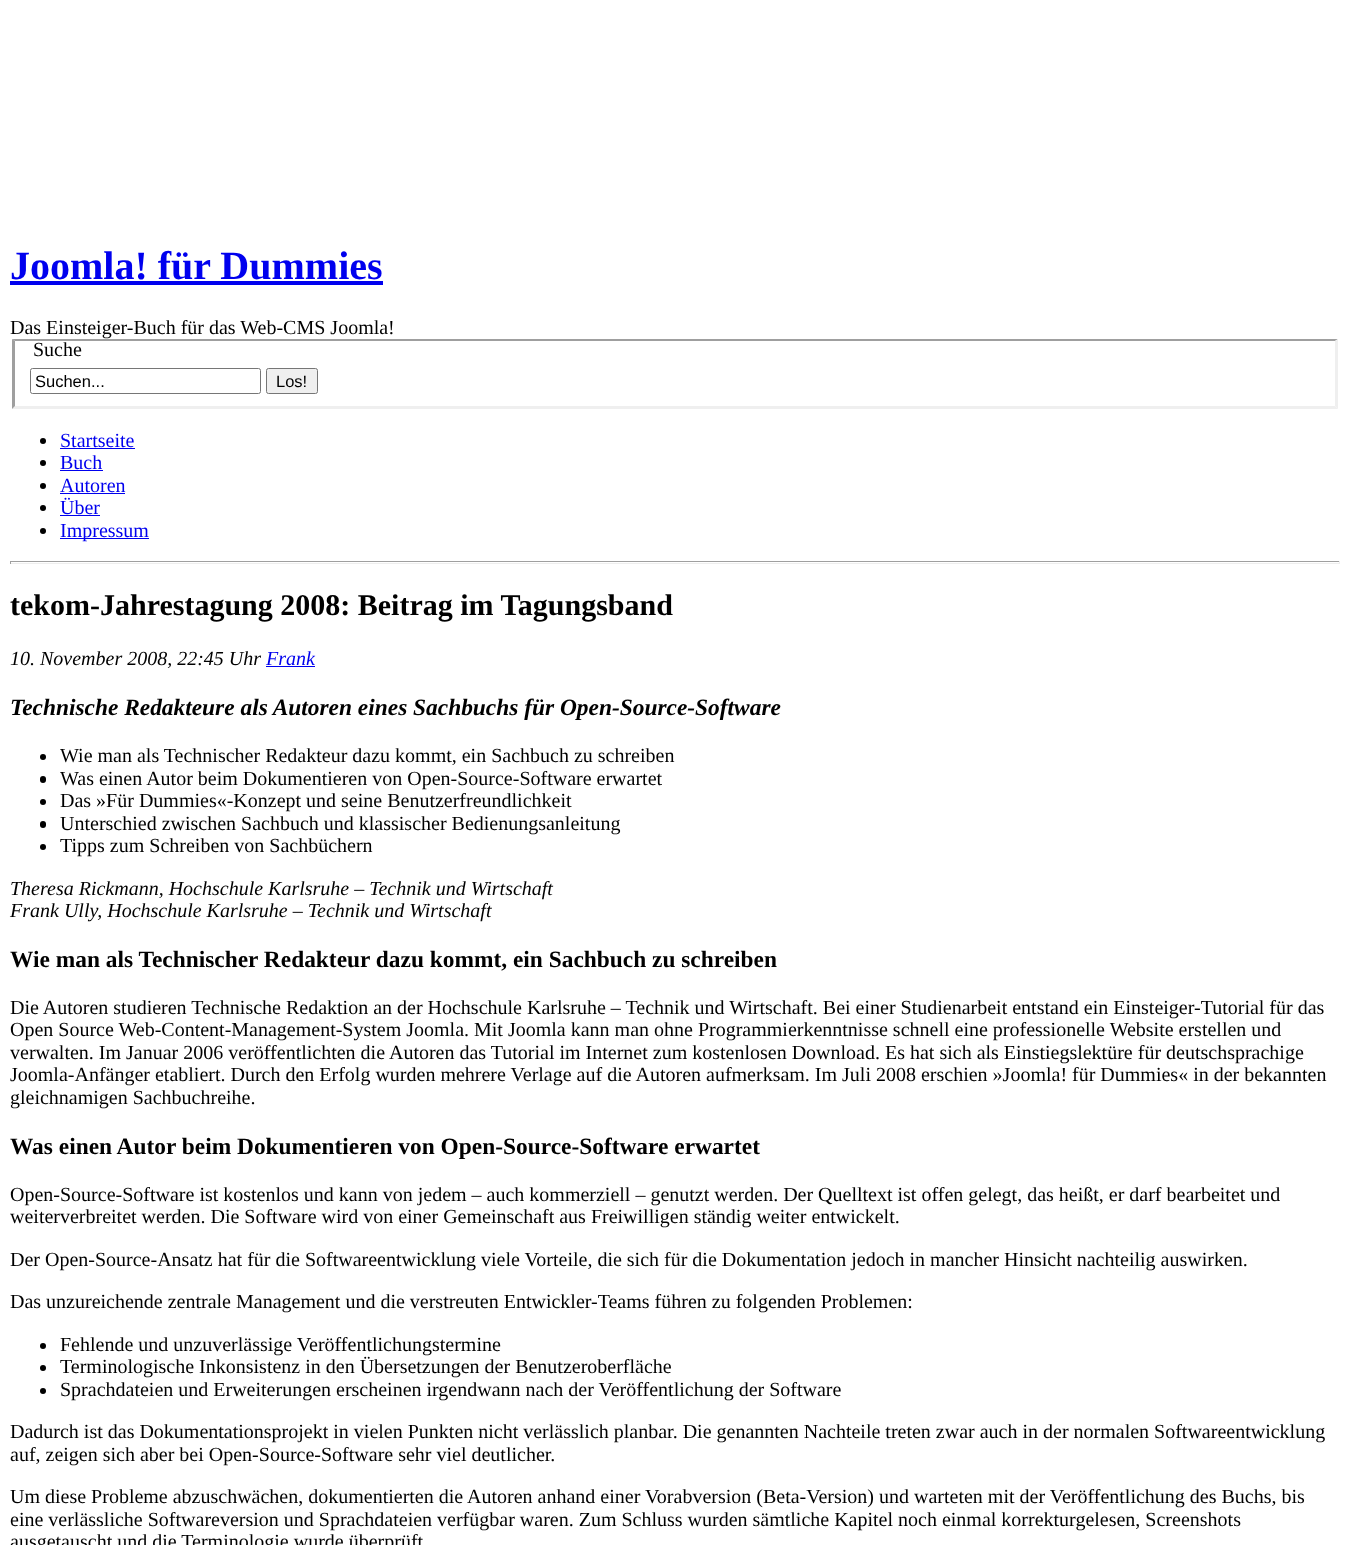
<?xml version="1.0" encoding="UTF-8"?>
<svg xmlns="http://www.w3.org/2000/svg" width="1350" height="1545">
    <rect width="100%" height="100%" fill="#FFFFFF"/>
    <text x="10" y="279" font-family="Liberation Serif" font-size="40" font-weight="700" fill="#0000EE">Joomla! für Dummies</text>
    <rect x="10" y="281" width="373" height="4" fill="#0000EE"/>
    <text x="10" y="334" font-family="Liberation Serif" font-size="20" fill="#000000">Das Einsteiger-Buch für das Web-CMS Joomla!</text>
    <path d="M 12 339 H 1338 L 1335 341 H 15 Z" fill="#9F9F9F"/>
    <path d="M 1338 339 V 409 L 1335 406 V 341 Z" fill="#EFEFEF"/>
    <path d="M 1338 409 H 12 L 15 406 H 1335 Z" fill="#EFEFEF"/>
    <path d="M 12 409 V 339 L 15 341 V 406 Z" fill="#9F9F9F"/>
    <text x="33" y="356" font-family="Liberation Serif" font-size="20" fill="#000000">Suche</text>
    <rect x="30.5" y="368.5" width="230" height="25" rx="2" fill="none" stroke="#767676"/>
    <text x="35" y="387" font-family="Liberation Sans" font-size="16.5" fill="#000000">Suchen...</text>
    <rect x="266.5" y="368.5" width="51" height="25" rx="2" fill="#EFEFEF" stroke="#767676"/>
    <text x="276" y="387" font-family="Liberation Sans" font-size="16.5" fill="#000000">Los!</text>
    <circle cx="43" cy="441" r="3" fill="#000000"/>
    <text x="60" y="447" font-family="Liberation Serif" font-size="20" fill="#0000EE">Startseite</text>
    <rect x="60" y="448" width="75" height="1" fill="#0000EE"/>
    <circle cx="43" cy="463" r="3" fill="#000000"/>
    <text x="60" y="469" font-family="Liberation Serif" font-size="20" fill="#0000EE">Buch</text>
    <rect x="60" y="470" width="43" height="1" fill="#0000EE"/>
    <circle cx="43" cy="486" r="3" fill="#000000"/>
    <text x="60" y="492" font-family="Liberation Serif" font-size="20" fill="#0000EE">Autoren</text>
    <rect x="60" y="493" width="65" height="1" fill="#0000EE"/>
    <circle cx="43" cy="508" r="3" fill="#000000"/>
    <text x="60" y="514" font-family="Liberation Serif" font-size="20" fill="#0000EE">Über</text>
    <rect x="60" y="515" width="40" height="1" fill="#0000EE"/>
    <circle cx="43" cy="531" r="3" fill="#000000"/>
    <rect x="60" y="538" width="89" height="1" fill="#0000EE"/>
    <text x="60" y="537" font-family="Liberation Serif" font-size="20" fill="#0000EE">Impressum</text>
    <rect x="10" y="561" width="1330" height="1" fill="#9F9F9F"/>
    <rect x="1339" y="561" width="1" height="3" fill="#EEEEEE"/>
    <rect x="10" y="563" width="1330" height="1" fill="#EEEEEE"/>
    <rect x="10" y="561" width="1" height="3" fill="#9F9F9F"/>
    <text x="10" y="615" font-family="Liberation Serif" font-size="30" font-weight="700" fill="#000000">tekom-Jahrestagung 2008: Beitrag im Tagungsband</text>
    <text x="10" y="665" font-family="Liberation Serif" font-size="20" font-style="italic" fill="#000000">10. November 2008, 22:45 Uhr</text>
    <text x="266" y="665" font-family="Liberation Serif" font-size="20" font-style="italic" fill="#0000EE">Frank</text>
    <rect x="266" y="666" width="49" height="1" fill="#0000EE"/>
    <text x="10" y="715" font-family="Liberation Serif" font-size="23.4" font-weight="700" font-style="italic" fill="#000000">Technische Redakteure als Autoren eines Sachbuchs für Open-Source-Software</text>
    <circle cx="43" cy="757" r="3" fill="#000000"/>
    <text x="60" y="762" font-family="Liberation Serif" font-size="20" fill="#000000">Wie man als Technischer Redakteur dazu kommt, ein Sachbuch zu schreiben</text>
    <rect x="40" y="776" width="6" height="7" rx="3" fill="#000000"/>
    <text x="60" y="785" font-family="Liberation Serif" font-size="20" fill="#000000">Was einen Autor beim Dokumentieren von Open-Source-Software erwartet</text>
    <circle cx="43" cy="802" r="3" fill="#000000"/>
    <text x="60" y="807" font-family="Liberation Serif" font-size="20" fill="#000000">Das »Für Dummies«-Konzept und seine Benutzerfreundlichkeit</text>
    <rect x="40" y="821" width="6" height="7" rx="3" fill="#000000"/>
    <text x="60" y="830" font-family="Liberation Serif" font-size="20" fill="#000000">Unterschied zwischen Sachbuch und klassischer Bedienungsanleitung</text>
    <circle cx="43" cy="847" r="3" fill="#000000"/>
    <text x="60" y="852" font-family="Liberation Serif" font-size="20" fill="#000000">Tipps zum Schreiben von Sachbüchern</text>
    <text font-family="Liberation Serif" font-size="20" font-style="italic" fill="#000000">
        <tspan x="10" y="895">Theresa Rickmann, Hochschule Karlsruhe – Technik und Wirtschaft</tspan>
        <tspan x="10" y="917">Frank Ully, Hochschule Karlsruhe – Technik und Wirtschaft</tspan>
    </text>
    <text x="10" y="967" font-family="Liberation Serif" font-size="23.4" font-weight="700" fill="#000000">Wie man als Technischer Redakteur dazu kommt, ein Sachbuch zu schreiben</text>
    <text font-family="Liberation Serif" font-size="20" fill="#000000">
        <tspan x="10" y="1014">Die Autoren studieren Technische Redaktion an der Hochschule Karlsruhe – Technik und Wirtschaft. Bei einer Studienarbeit entstand ein Einsteiger-Tutorial für das</tspan>
        <tspan x="10" y="1036">Open Source Web-Content-Management-System Joomla. Mit Joomla kann man ohne Programmierkenntnisse schnell eine professionelle Website erstellen und</tspan>
        <tspan x="10" y="1059">verwalten. Im Januar 2006 veröffentlichten die Autoren das Tutorial im Internet zum kostenlosen Download. Es hat sich als Einstiegslektüre für deutschsprachige</tspan>
        <tspan x="10" y="1081">Joomla-Anfänger etabliert. Durch den Erfolg wurden mehrere Verlage auf die Autoren aufmerksam. Im Juli 2008 erschien »Joomla! für Dummies« in der bekannten</tspan>
        <tspan x="10" y="1104">gleichnamigen Sachbuchreihe.</tspan>
    </text>
    <text x="10" y="1154" font-family="Liberation Serif" font-size="23.4" font-weight="700" fill="#000000">Was einen Autor beim Dokumentieren von Open-Source-Software erwartet</text>
    <text font-family="Liberation Serif" font-size="20" fill="#000000">
        <tspan x="10" y="1201">Open-Source-Software ist kostenlos und kann von jedem – auch kommerziell – genutzt werden. Der Quelltext ist offen gelegt, das heißt, er darf bearbeitet und</tspan>
        <tspan x="10" y="1223">weiterverbreitet werden. Die Software wird von einer Gemeinschaft aus Freiwilligen ständig weiter entwickelt.</tspan>
    </text>
    <text x="10" y="1266" font-family="Liberation Serif" font-size="20" fill="#000000">Der Open-Source-Ansatz hat für die Softwareentwicklung viele Vorteile, die sich für die Dokumentation jedoch in mancher Hinsicht nachteilig auswirken.</text>
    <text x="10" y="1308" font-family="Liberation Serif" font-size="20" fill="#000000">Das unzureichende zentrale Management und die verstreuten Entwickler-Teams führen zu folgenden Problemen:</text>
    <circle cx="43" cy="1346" r="3" fill="#000000"/>
    <text x="60" y="1351" font-family="Liberation Serif" font-size="20" fill="#000000">Fehlende und unzuverlässige Veröffentlichungstermine</text>
    <circle cx="43" cy="1368" r="3" fill="#000000"/>
    <text x="60" y="1373" font-family="Liberation Serif" font-size="20" fill="#000000">Terminologische Inkonsistenz in den Übersetzungen der Benutzeroberfläche</text>
    <circle cx="43" cy="1391" r="3" fill="#000000"/>
    <text x="60" y="1396" font-family="Liberation Serif" font-size="20" fill="#000000">Sprachdateien und Erweiterungen erscheinen irgendwann nach der Veröffentlichung der Software</text>
    <text font-family="Liberation Serif" font-size="20" fill="#000000">
        <tspan x="10" y="1438">Dadurch ist das Dokumentationsprojekt in vielen Punkten nicht verlässlich planbar. Die genannten Nachteile treten zwar auch in der normalen Softwareentwicklung</tspan>
        <tspan x="10" y="1461">auf, zeigen sich aber bei Open-Source-Software sehr viel deutlicher.</tspan>
    </text>
    <text font-family="Liberation Serif" font-size="20" fill="#000000">
        <tspan x="10" y="1503">Um diese Probleme abzuschwächen, dokumentierten die Autoren anhand einer Vorabversion (Beta-Version) und warteten mit der Veröffentlichung des Buchs, bis</tspan>
        <tspan x="10" y="1526">eine verlässliche Softwareversion und Sprachdateien verfügbar waren. Zum Schluss wurden sämtliche Kapitel noch einmal korrekturgelesen, Screenshots</tspan>
        <tspan x="10" y="1548">ausgetauscht und die Terminologie wurde überprüft</tspan>
    </text>
</svg>
